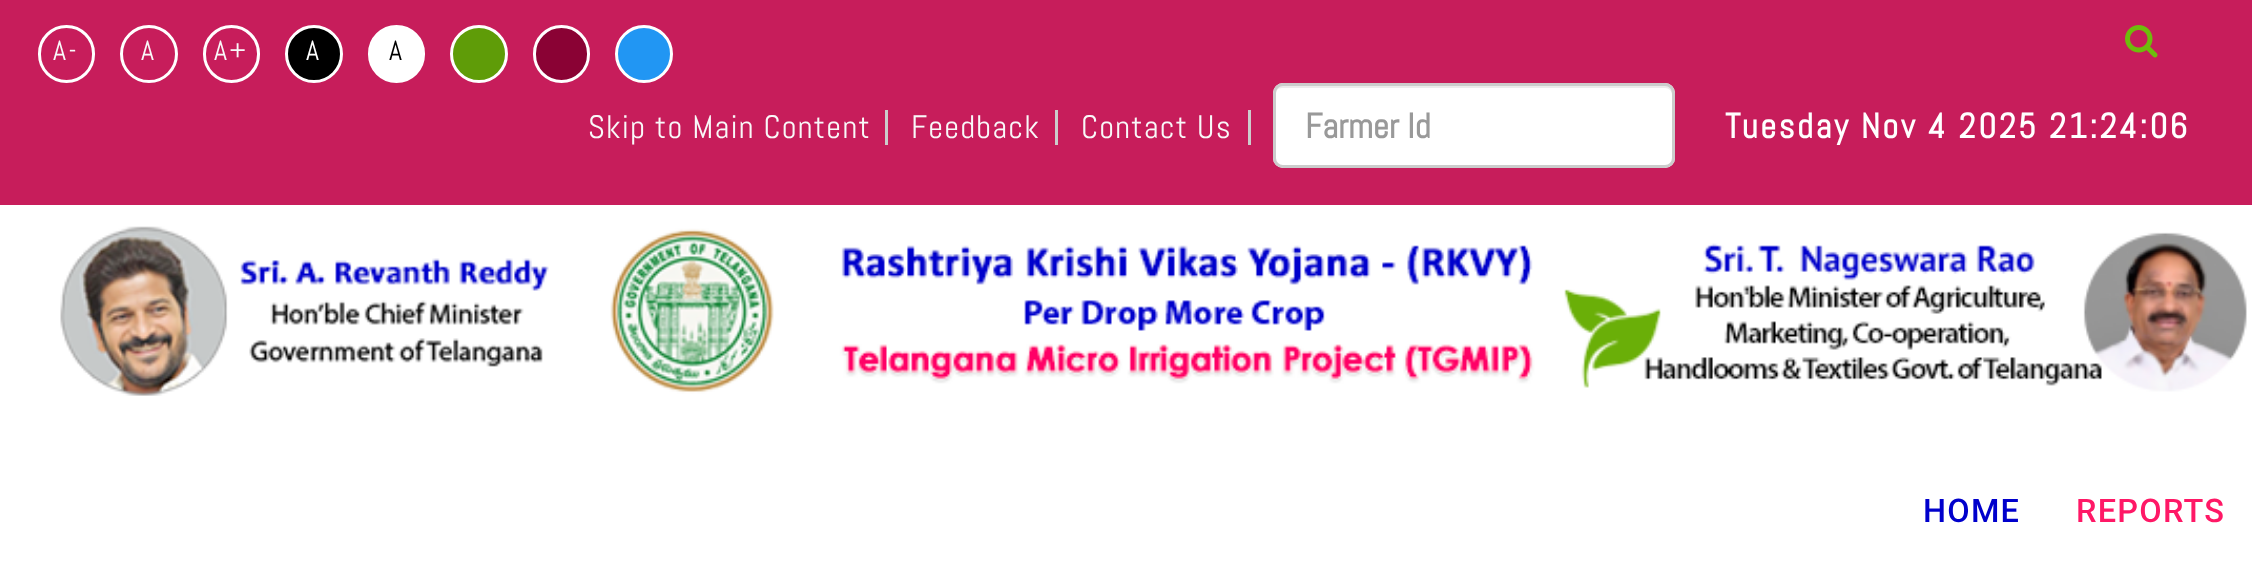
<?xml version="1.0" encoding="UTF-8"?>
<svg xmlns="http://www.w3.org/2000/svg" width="2252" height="576">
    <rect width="100%" height="100%" fill="#FFFFFF"/>
    <rect x="0" y="0" width="2252" height="205" fill="#C71D5B"/>
    <rect x="39.5" y="26.5" width="54" height="55" rx="27" fill="none" stroke="#FFFFFF" stroke-width="3"/>
    <text x="53" y="60" font-family="Abel" font-size="28" letter-spacing="2.5" fill="#F9F9F9">A-</text>
    <circle cx="149" cy="54" r="27.5" fill="none" stroke="#FFFFFF" stroke-width="3"/>
    <text x="141" y="60" font-family="Abel" font-size="28" letter-spacing="2.5" fill="#F9F9F9">A</text>
    <rect x="204.5" y="26.5" width="54" height="55" rx="27" fill="none" stroke="#FFFFFF" stroke-width="3"/>
    <text x="214" y="60" font-family="Abel" font-size="28" letter-spacing="2.5" fill="#F9F9F9">A+</text>
    <circle cx="314" cy="54" r="27.5" fill="#000000" stroke="#FFFFFF" stroke-width="3"/>
    <text x="306" y="60" font-family="Abel" font-size="28" letter-spacing="2.5" fill="#FFFFFF">A</text>
    <rect x="369.5" y="26.5" width="54" height="55" rx="27" fill="#FFFFFF" stroke="#FFFFFF" stroke-width="3"/>
    <text x="389" y="60" font-family="Abel" font-size="28" letter-spacing="2.5" fill="#000000">A</text>
    <circle cx="479" cy="54" r="27.5" fill="#5F9C08" stroke="#FFFFFF" stroke-width="3"/>
    <rect x="534.5" y="26.5" width="54" height="55" rx="27" fill="#8A0234" stroke="#FFFFFF" stroke-width="3"/>
    <circle cx="644" cy="54" r="27.5" fill="#2196F3" stroke="#FFFFFF" stroke-width="3"/>
    <image x="2125" y="25" width="33" height="33" href="img_01.png"/>
    <rect x="885" y="110" width="3" height="35" fill="#CCCCCC"/>
    <text x="588" y="138" font-family="Abel" font-size="32.5" letter-spacing="1.25" fill="#F9F9F9">Skip to Main Content</text>
    <rect x="1055" y="110" width="3" height="35" fill="#CCCCCC"/>
    <text x="911" y="138" font-family="Abel" font-size="32.5" letter-spacing="1.25" fill="#F9F9F9">Feedback</text>
    <rect x="1248" y="110" width="3" height="35" fill="#CCCCCC"/>
    <text x="1081" y="138" font-family="Abel" font-size="32.5" letter-spacing="1.25" fill="#F9F9F9">Contact Us</text>
    <rect x="1273" y="83" width="402" height="85" rx="10" fill="#FFFFFF"/>
    <path d="M 1282 88 H 1665 C 1669 88 1672 91 1672 95 V 161 C 1673 160 1673 158 1673 157 V 93 C 1673 89 1669 85 1665 85 H 1283 C 1279 85 1275 89 1275 93 V 95 C 1275 91 1278 88 1282 88 Z" fill="#ECECEC"/>
    <rect x="1274.5" y="84.5" width="399" height="82" rx="8.5" fill="none" stroke="#CCCCCC" stroke-width="3"/>
    <text x="1305" y="138" font-family="Abel" font-size="35" font-weight="700" fill="#999999">Farmer Id</text>
    <text x="1725" y="138" font-family="Abel" font-size="35" font-weight="700" letter-spacing="2.5" fill="#FFFFFF">Tuesday Nov 4 2025 21:24:06</text>
    <image x="60" y="226" width="2187" height="170" href="img_02.png"/>
    <text x="1923" y="522" font-family="Roboto" font-size="32.5" font-weight="500" letter-spacing="1.25" fill="#0000CC">HOME</text>
    <text x="2076" y="522" font-family="Roboto" font-size="32.5" font-weight="500" letter-spacing="1.25" fill="#FF1866">REPORTS</text>
</svg>
